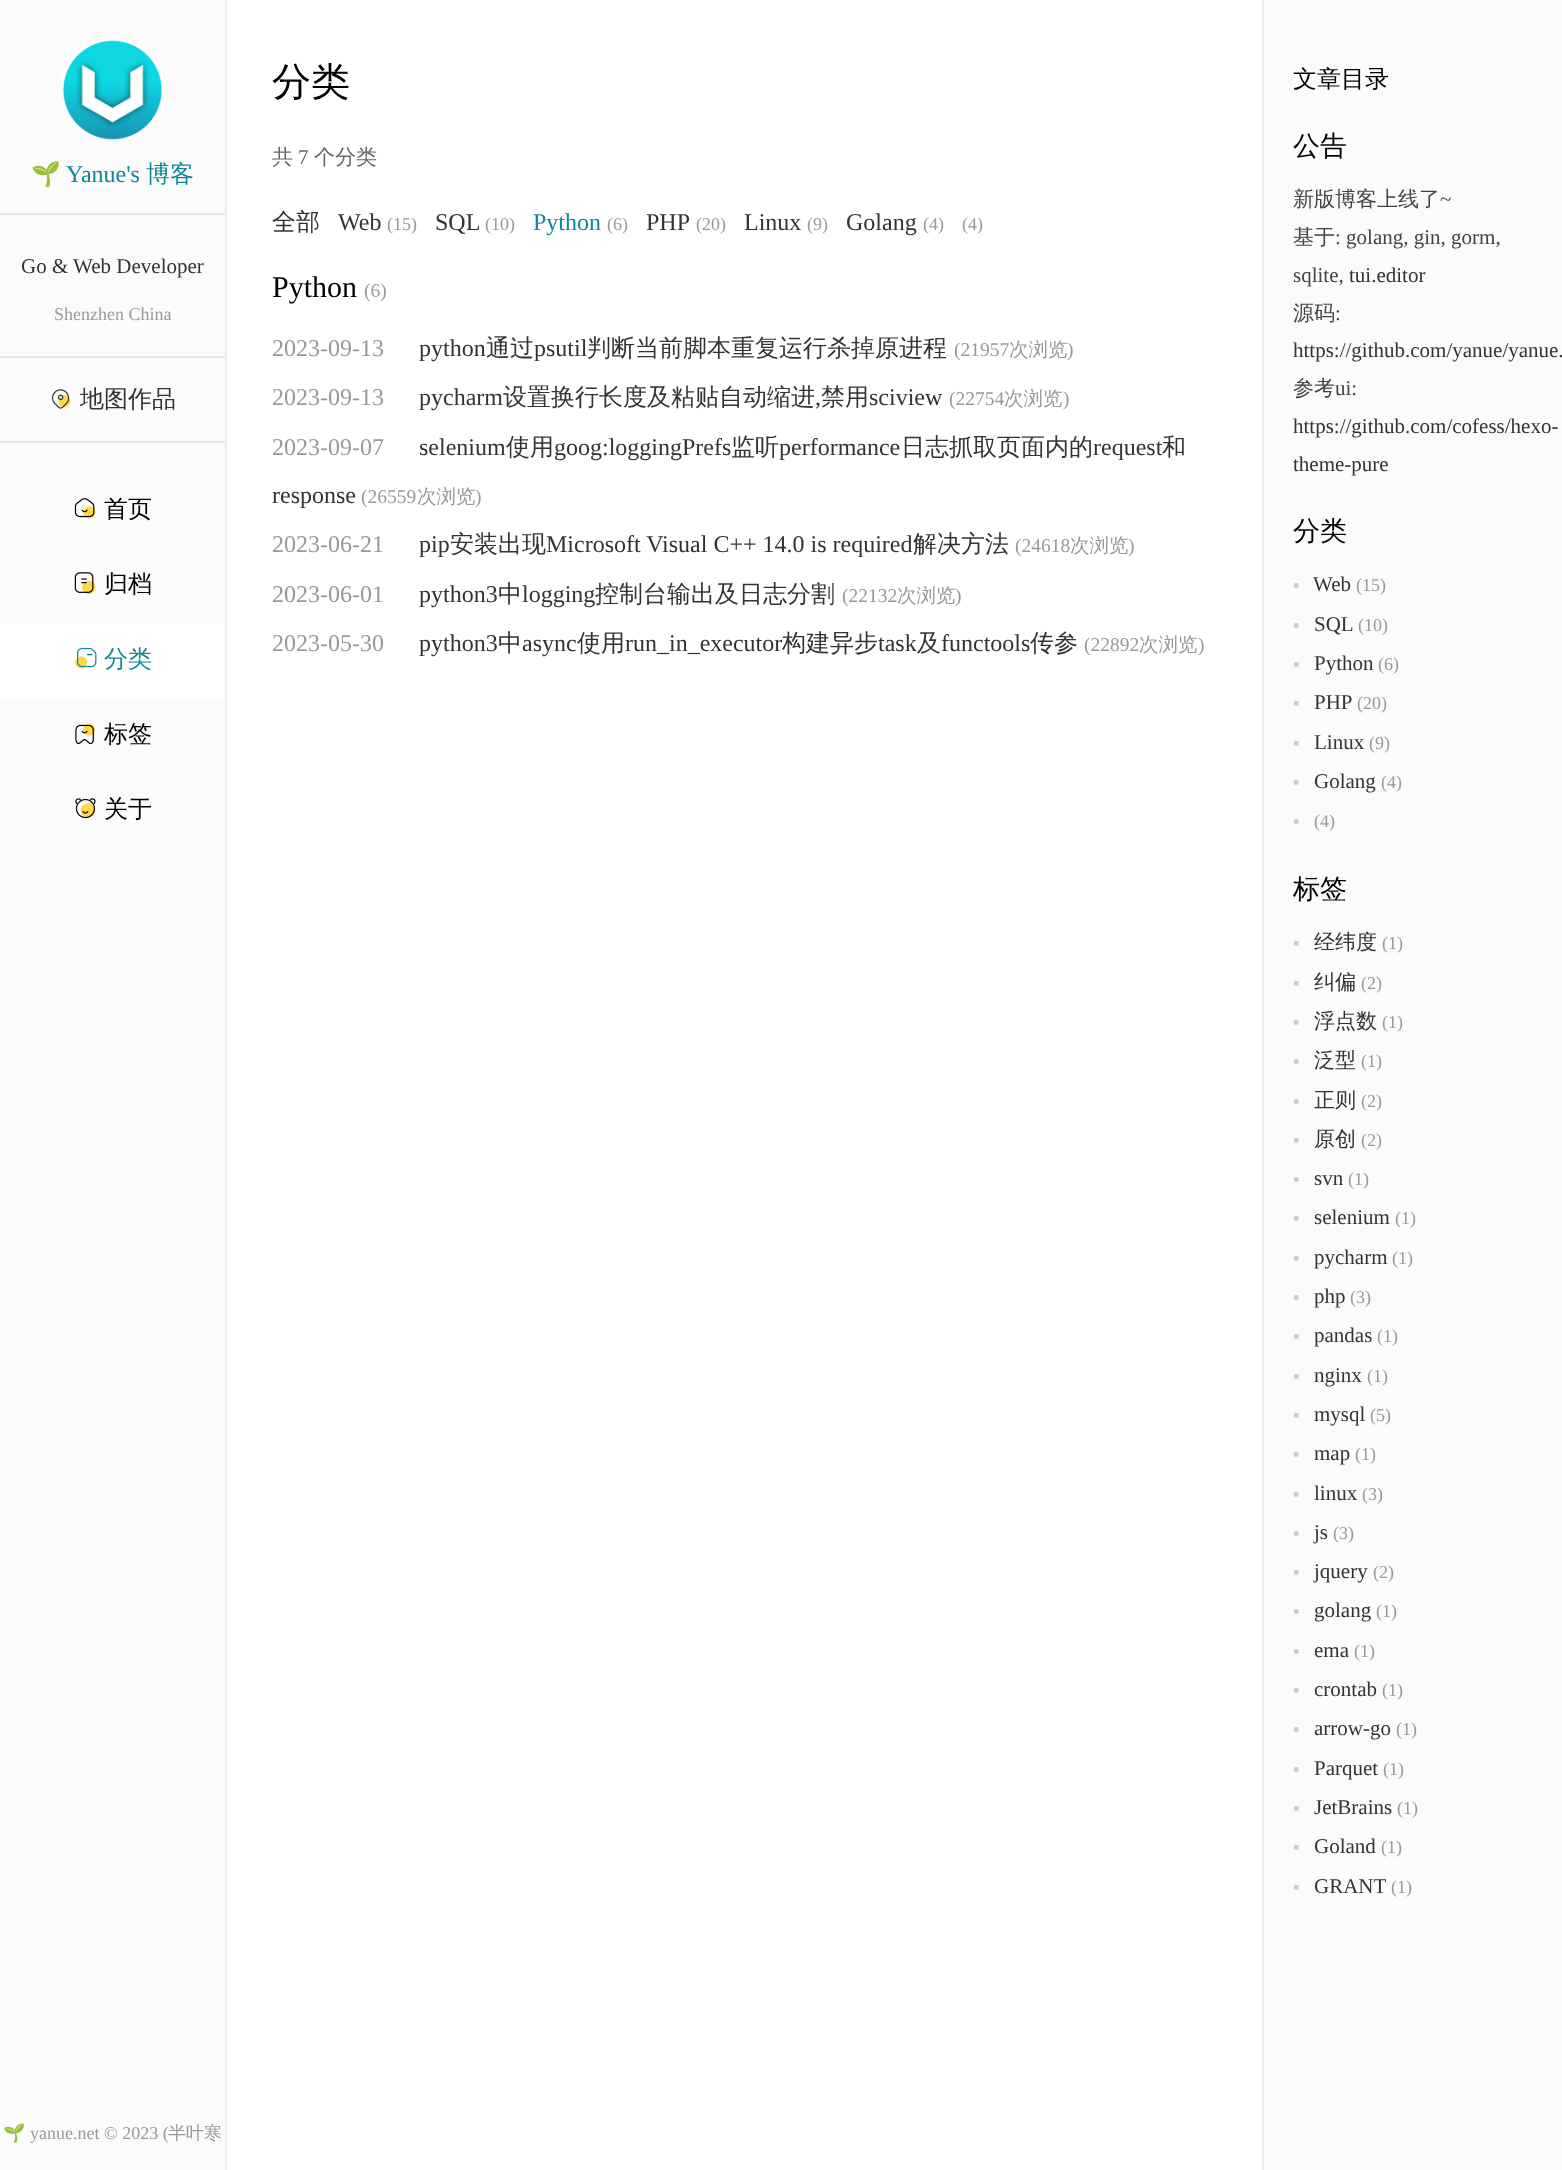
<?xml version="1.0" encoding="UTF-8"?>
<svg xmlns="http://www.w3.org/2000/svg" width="1562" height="2170">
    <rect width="100%" height="100%" fill="#FFFFFF"/>
    <rect x="0" y="0" width="225" height="2170" fill="#FBFBFB"/>
    <rect x="225" y="0" width="2" height="2170" fill="#EEEEEE"/>
    <image x="62" y="40" width="101" height="100" href="img_01.png"/>
    <rect x="0" y="213" width="225" height="2" fill="#E6E6E6"/>
    <text x="31" y="182" font-family="Noto Color Emoji" font-size="24" fill="#0C8999">🌱</text>
    <text x="66" y="182" font-family="Liberation Serif" font-size="24" fill="#0C8999">Yanue's</text>
    <text x="146" y="182" font-family="WenQuanYi Zen Hei" font-size="24" font-weight="500" fill="#0C8999">博客</text>
    <text x="21" y="273" font-family="Liberation Serif" font-size="21" fill="#333333">Go &amp; Web Developer</text>
    <rect x="0" y="356" width="225" height="2" fill="#E6E6E6"/>
    <text x="54" y="320" font-family="Liberation Serif" font-size="18" fill="#999999">Shenzhen China</text>
    <rect x="0" y="441" width="225" height="2" fill="#E6E6E6"/>
    <image x="52" y="389" width="19" height="20" href="img_02.png"/>
    <text x="80" y="407" font-family="WenQuanYi Zen Hei" font-size="24" font-weight="500" fill="#333333">地图作品</text>
    <image x="74" y="498" width="22" height="21" href="img_03.png"/>
    <text x="104" y="517" font-family="WenQuanYi Zen Hei" font-size="24" font-weight="500" fill="#000000">首页</text>
    <image x="74" y="572" width="22" height="23" href="img_04.png"/>
    <text x="104" y="592" font-family="WenQuanYi Zen Hei" font-size="24" font-weight="500" fill="#000000">归档</text>
    <rect x="0" y="623" width="225" height="75" fill="#FFFFFF"/>
    <image x="75" y="647" width="22" height="22" href="img_05.png"/>
    <text x="104" y="667" font-family="WenQuanYi Zen Hei" font-size="24" font-weight="500" fill="#0C8999">分类</text>
    <image x="75" y="723" width="21" height="22" href="img_06.png"/>
    <text x="104" y="742" font-family="WenQuanYi Zen Hei" font-size="24" font-weight="500" fill="#000000">标签</text>
    <image x="75" y="798" width="21" height="21" href="img_07.png"/>
    <text x="104" y="817" font-family="WenQuanYi Zen Hei" font-size="24" font-weight="500" fill="#000000">关于</text>
    <text x="3" y="2139" font-family="Noto Color Emoji" font-size="18" fill="#999999">🌱</text>
    <text x="30" y="2139" font-family="Liberation Serif" font-size="18" fill="#999999">yanue.net © 2023 (</text>
    <text x="168" y="2139" font-family="WenQuanYi Zen Hei" font-size="18" font-weight="500" fill="#999999">半叶寒</text>
    <text x="272" y="95" font-family="WenQuanYi Zen Hei" font-size="39" font-weight="500" fill="#000000">分类</text>
    <text x="272" y="164" font-family="WenQuanYi Zen Hei" font-size="21" font-weight="500" fill="#666666">共</text>
    <text x="298" y="164" font-family="Liberation Serif" font-size="21" fill="#666666">7</text>
    <text x="314" y="164" font-family="WenQuanYi Zen Hei" font-size="21" font-weight="500" fill="#666666">个分类</text>
    <text x="272" y="230" font-family="WenQuanYi Zen Hei" font-size="24" font-weight="500" fill="#333333">全部</text>
    <text x="338" y="230" font-family="Liberation Serif" font-size="24" fill="#333333">Web</text>
    <text x="387" y="230" font-family="Liberation Serif" font-size="18" fill="#999999">(15)</text>
    <text x="435" y="230" font-family="Liberation Serif" font-size="24" fill="#333333">SQL</text>
    <text x="485" y="230" font-family="Liberation Serif" font-size="18" fill="#999999">(10)</text>
    <text x="533" y="230" font-family="Liberation Serif" font-size="24" fill="#0C8999">Python</text>
    <text x="607" y="230" font-family="Liberation Serif" font-size="18" fill="#999999">(6)</text>
    <text x="646" y="230" font-family="Liberation Serif" font-size="24" fill="#333333">PHP</text>
    <text x="696" y="230" font-family="Liberation Serif" font-size="18" fill="#999999">(20)</text>
    <text x="744" y="230" font-family="Liberation Serif" font-size="24" fill="#333333">Linux</text>
    <text x="807" y="230" font-family="Liberation Serif" font-size="18" fill="#999999">(9)</text>
    <text x="846" y="230" font-family="Liberation Serif" font-size="24" fill="#333333">Golang</text>
    <text x="923" y="230" font-family="Liberation Serif" font-size="18" fill="#999999">(4)</text>
    <text x="962" y="230" font-family="Liberation Serif" font-size="18" fill="#999999">(4)</text>
    <text x="272" y="297" font-family="Liberation Serif" font-size="30" fill="#000000">Python</text>
    <text x="364" y="297" font-family="Liberation Serif" font-size="19.5" fill="#999999">(6)</text>
    <text x="272" y="356" font-family="Liberation Serif" font-size="24" fill="#999999">2023-09-13</text>
    <text x="419" y="356" font-family="Liberation Serif" font-size="24" fill="#333333">python</text>
    <text x="486" y="356" font-family="WenQuanYi Zen Hei" font-size="24" font-weight="500" fill="#333333">通过</text>
    <text x="534" y="356" font-family="Liberation Serif" font-size="24" fill="#333333">psutil</text>
    <text x="587" y="356" font-family="WenQuanYi Zen Hei" font-size="24" font-weight="500" fill="#333333">判断当前脚本重复运行杀掉原进程</text>
    <text x="954" y="356" font-family="Liberation Serif" font-size="19.5" fill="#999999">(21957</text>
    <text x="1009" y="356" font-family="WenQuanYi Zen Hei" font-size="19.5" font-weight="500" fill="#999999">次浏览</text>
    <text x="1067" y="356" font-family="Liberation Serif" font-size="19.5" fill="#999999">)</text>
    <text x="272" y="405" font-family="Liberation Serif" font-size="24" fill="#999999">2023-09-13</text>
    <text x="419" y="405" font-family="Liberation Serif" font-size="24" fill="#333333">pycharm</text>
    <text x="503" y="405" font-family="WenQuanYi Zen Hei" font-size="24" font-weight="500" fill="#333333">设置换行长度及粘贴自动缩进</text>
    <text x="815" y="405" font-family="Liberation Serif" font-size="24" fill="#333333">,</text>
    <text x="821" y="405" font-family="WenQuanYi Zen Hei" font-size="24" font-weight="500" fill="#333333">禁用</text>
    <text x="869" y="405" font-family="Liberation Serif" font-size="24" fill="#333333">sciview</text>
    <text x="949" y="405" font-family="Liberation Serif" font-size="19.5" fill="#999999">(22754</text>
    <text x="1004" y="405" font-family="WenQuanYi Zen Hei" font-size="19.5" font-weight="500" fill="#999999">次浏览</text>
    <text x="1063" y="405" font-family="Liberation Serif" font-size="19.5" fill="#999999">)</text>
    <text x="272" y="455" font-family="Liberation Serif" font-size="24" fill="#999999">2023-09-07</text>
    <text x="419" y="455" font-family="Liberation Serif" font-size="24" fill="#333333">selenium</text>
    <text x="506" y="455" font-family="WenQuanYi Zen Hei" font-size="24" font-weight="500" fill="#333333">使用</text>
    <text x="554" y="455" font-family="Liberation Serif" font-size="24" fill="#333333">goog:loggingPrefs</text>
    <text x="731" y="455" font-family="WenQuanYi Zen Hei" font-size="24" font-weight="500" fill="#333333">监听</text>
    <text x="779" y="455" font-family="Liberation Serif" font-size="24" fill="#333333">performance</text>
    <text x="901" y="455" font-family="WenQuanYi Zen Hei" font-size="24" font-weight="500" fill="#333333">日志抓取页面内的</text>
    <text x="1093" y="455" font-family="Liberation Serif" font-size="24" fill="#333333">request</text>
    <text x="1162" y="455" font-family="WenQuanYi Zen Hei" font-size="24" font-weight="500" fill="#333333">和</text>
    <text x="272" y="503" font-family="Liberation Serif" font-size="24" fill="#333333">response</text>
    <text x="361" y="503" font-family="Liberation Serif" font-size="19.5" fill="#999999">(26559</text>
    <text x="417" y="503" font-family="WenQuanYi Zen Hei" font-size="19.5" font-weight="500" fill="#999999">次浏览</text>
    <text x="475" y="503" font-family="Liberation Serif" font-size="19.5" fill="#999999">)</text>
    <text x="272" y="552" font-family="Liberation Serif" font-size="24" fill="#999999">2023-06-21</text>
    <text x="419" y="552" font-family="Liberation Serif" font-size="24" fill="#333333">pip</text>
    <text x="450" y="552" font-family="WenQuanYi Zen Hei" font-size="24" font-weight="500" fill="#333333">安装出现</text>
    <text x="546" y="552" font-family="Liberation Serif" font-size="24" fill="#333333">Microsoft Visual C++ 14.0 is required</text>
    <text x="913" y="552" font-family="WenQuanYi Zen Hei" font-size="24" font-weight="500" fill="#333333">解决方法</text>
    <text x="1015" y="552" font-family="Liberation Serif" font-size="19.5" fill="#999999">(24618</text>
    <text x="1070" y="552" font-family="WenQuanYi Zen Hei" font-size="19.5" font-weight="500" fill="#999999">次浏览</text>
    <text x="1128" y="552" font-family="Liberation Serif" font-size="19.5" fill="#999999">)</text>
    <text x="272" y="602" font-family="Liberation Serif" font-size="24" fill="#999999">2023-06-01</text>
    <text x="419" y="602" font-family="Liberation Serif" font-size="24" fill="#333333">python3</text>
    <text x="498" y="602" font-family="WenQuanYi Zen Hei" font-size="24" font-weight="500" fill="#333333">中</text>
    <text x="522" y="602" font-family="Liberation Serif" font-size="24" fill="#333333">logging</text>
    <text x="595" y="602" font-family="WenQuanYi Zen Hei" font-size="24" font-weight="500" fill="#333333">控制台输出及日志分割</text>
    <text x="842" y="602" font-family="Liberation Serif" font-size="19.5" fill="#999999">(22132</text>
    <text x="897" y="602" font-family="WenQuanYi Zen Hei" font-size="19.5" font-weight="500" fill="#999999">次浏览</text>
    <text x="955" y="602" font-family="Liberation Serif" font-size="19.5" fill="#999999">)</text>
    <text x="272" y="651" font-family="Liberation Serif" font-size="24" fill="#999999">2023-05-30</text>
    <text x="419" y="651" font-family="Liberation Serif" font-size="24" fill="#333333">python3</text>
    <text x="498" y="651" font-family="WenQuanYi Zen Hei" font-size="24" font-weight="500" fill="#333333">中</text>
    <text x="522" y="651" font-family="Liberation Serif" font-size="24" fill="#333333">async</text>
    <text x="577" y="651" font-family="WenQuanYi Zen Hei" font-size="24" font-weight="500" fill="#333333">使用</text>
    <text x="625" y="651" font-family="Liberation Serif" font-size="24" fill="#333333">run_in_executor</text>
    <text x="782" y="651" font-family="WenQuanYi Zen Hei" font-size="24" font-weight="500" fill="#333333">构建异步</text>
    <text x="878" y="651" font-family="Liberation Serif" font-size="24" fill="#333333">task</text>
    <text x="917" y="651" font-family="WenQuanYi Zen Hei" font-size="24" font-weight="500" fill="#333333">及</text>
    <text x="941" y="651" font-family="Liberation Serif" font-size="24" fill="#333333">functools</text>
    <text x="1030" y="651" font-family="WenQuanYi Zen Hei" font-size="24" font-weight="500" fill="#333333">传参</text>
    <text x="1084" y="651" font-family="Liberation Serif" font-size="19.5" fill="#999999">(22892</text>
    <text x="1139" y="651" font-family="WenQuanYi Zen Hei" font-size="19.5" font-weight="500" fill="#999999">次浏览</text>
    <text x="1198" y="651" font-family="Liberation Serif" font-size="19.5" fill="#999999">)</text>
    <rect x="1264" y="0" width="298" height="2170" fill="#FBFBFB"/>
    <rect x="1262" y="0" width="2" height="2170" fill="#EEEEEE"/>
    <text x="1293" y="87" font-family="WenQuanYi Zen Hei" font-size="24" font-weight="500" fill="#000000">文章目录</text>
    <text x="1293" y="155" font-family="WenQuanYi Zen Hei" font-size="27" font-weight="500" fill="#000000">公告</text>
    <text x="1293" y="206" font-family="WenQuanYi Zen Hei" font-size="21" font-weight="500" fill="#444444">新版博客上线了</text>
    <text x="1440" y="206" font-family="Liberation Serif" font-size="21" fill="#444444">~</text>
    <text x="1293" y="244" font-family="WenQuanYi Zen Hei" font-size="21" font-weight="500" fill="#444444">基于</text>
    <text x="1335" y="244" font-family="Liberation Serif" font-size="21" fill="#444444">: golang, gin, gorm,</text>
    <text x="1293" y="282" font-family="Liberation Serif" font-size="21" fill="#444444">sqlite,</text>
    <text x="1349" y="282" font-family="Liberation Serif" font-size="21" fill="#333333">tui.editor</text>
    <text x="1293" y="320" font-family="WenQuanYi Zen Hei" font-size="21" font-weight="500" fill="#444444">源码</text>
    <text x="1335" y="320" font-family="Liberation Serif" font-size="21" fill="#444444">:</text>
    <text x="1293" y="357" font-family="Liberation Serif" font-size="21" fill="#333333">https://github.com/yanue/yanue.</text>
    <text x="1293" y="395" font-family="WenQuanYi Zen Hei" font-size="21" font-weight="500" fill="#444444">参考</text>
    <text x="1335" y="395" font-family="Liberation Serif" font-size="21" fill="#444444">ui:</text>
    <text font-family="Liberation Serif" font-size="21" fill="#333333">
        <tspan x="1293" y="433">https://github.com/cofess/hexo-</tspan>
        <tspan x="1293" y="471">theme-pure</tspan>
    </text>
    <text x="1293" y="540" font-family="WenQuanYi Zen Hei" font-size="27" font-weight="500" fill="#000000">分类</text>
    <text x="1293" y="591" font-family="Liberation Serif" font-size="18" fill="#CCCCCC">▪</text>
    <text x="1313" y="591" font-family="Liberation Serif" font-size="21" fill="#333333">Web</text>
    <text x="1356" y="591" font-family="Liberation Serif" font-size="18" fill="#999999">(15)</text>
    <text x="1293" y="631" font-family="Liberation Serif" font-size="18" fill="#CCCCCC">▪</text>
    <text x="1314" y="631" font-family="Liberation Serif" font-size="21" fill="#333333">SQL</text>
    <text x="1358" y="631" font-family="Liberation Serif" font-size="18" fill="#999999">(10)</text>
    <text x="1293" y="670" font-family="Liberation Serif" font-size="18" fill="#CCCCCC">▪</text>
    <text x="1314" y="670" font-family="Liberation Serif" font-size="21" fill="#333333">Python</text>
    <text x="1378" y="670" font-family="Liberation Serif" font-size="18" fill="#999999">(6)</text>
    <text x="1293" y="709" font-family="Liberation Serif" font-size="18" fill="#CCCCCC">▪</text>
    <text x="1314" y="709" font-family="Liberation Serif" font-size="21" fill="#333333">PHP</text>
    <text x="1357" y="709" font-family="Liberation Serif" font-size="18" fill="#999999">(20)</text>
    <text x="1293" y="749" font-family="Liberation Serif" font-size="18" fill="#CCCCCC">▪</text>
    <text x="1314" y="749" font-family="Liberation Serif" font-size="21" fill="#333333">Linux</text>
    <text x="1369" y="749" font-family="Liberation Serif" font-size="18" fill="#999999">(9)</text>
    <text x="1293" y="788" font-family="Liberation Serif" font-size="18" fill="#CCCCCC">▪</text>
    <text x="1314" y="788" font-family="Liberation Serif" font-size="21" fill="#333333">Golang</text>
    <text x="1381" y="788" font-family="Liberation Serif" font-size="18" fill="#999999">(4)</text>
    <text x="1293" y="827" font-family="Liberation Serif" font-size="18" fill="#CCCCCC">▪</text>
    <text x="1314" y="827" font-family="Liberation Serif" font-size="18" fill="#999999">(4)</text>
    <text x="1293" y="898" font-family="WenQuanYi Zen Hei" font-size="27" font-weight="500" fill="#000000">标签</text>
    <text x="1293" y="949" font-family="Liberation Serif" font-size="18" fill="#CCCCCC">▪</text>
    <text x="1314" y="949" font-family="WenQuanYi Zen Hei" font-size="21" font-weight="500" fill="#333333">经纬度</text>
    <text x="1382" y="949" font-family="Liberation Serif" font-size="18" fill="#999999">(1)</text>
    <text x="1293" y="989" font-family="Liberation Serif" font-size="18" fill="#CCCCCC">▪</text>
    <text x="1314" y="989" font-family="WenQuanYi Zen Hei" font-size="21" font-weight="500" fill="#333333">纠偏</text>
    <text x="1361" y="989" font-family="Liberation Serif" font-size="18" fill="#999999">(2)</text>
    <text x="1293" y="1028" font-family="Liberation Serif" font-size="18" fill="#CCCCCC">▪</text>
    <text x="1314" y="1028" font-family="WenQuanYi Zen Hei" font-size="21" font-weight="500" fill="#333333">浮点数</text>
    <text x="1382" y="1028" font-family="Liberation Serif" font-size="18" fill="#999999">(1)</text>
    <text x="1293" y="1067" font-family="Liberation Serif" font-size="18" fill="#CCCCCC">▪</text>
    <text x="1314" y="1067" font-family="WenQuanYi Zen Hei" font-size="21" font-weight="500" fill="#333333">泛型</text>
    <text x="1361" y="1067" font-family="Liberation Serif" font-size="18" fill="#999999">(1)</text>
    <text x="1293" y="1107" font-family="Liberation Serif" font-size="18" fill="#CCCCCC">▪</text>
    <text x="1314" y="1107" font-family="WenQuanYi Zen Hei" font-size="21" font-weight="500" fill="#333333">正则</text>
    <text x="1361" y="1107" font-family="Liberation Serif" font-size="18" fill="#999999">(2)</text>
    <text x="1293" y="1146" font-family="Liberation Serif" font-size="18" fill="#CCCCCC">▪</text>
    <text x="1314" y="1146" font-family="WenQuanYi Zen Hei" font-size="21" font-weight="500" fill="#333333">原创</text>
    <text x="1361" y="1146" font-family="Liberation Serif" font-size="18" fill="#999999">(2)</text>
    <text x="1293" y="1185" font-family="Liberation Serif" font-size="18" fill="#CCCCCC">▪</text>
    <text x="1314" y="1185" font-family="Liberation Serif" font-size="21" fill="#333333">svn</text>
    <text x="1348" y="1185" font-family="Liberation Serif" font-size="18" fill="#999999">(1)</text>
    <text x="1293" y="1224" font-family="Liberation Serif" font-size="18" fill="#CCCCCC">▪</text>
    <text x="1314" y="1224" font-family="Liberation Serif" font-size="21" fill="#333333">selenium</text>
    <text x="1395" y="1224" font-family="Liberation Serif" font-size="18" fill="#999999">(1)</text>
    <text x="1293" y="1264" font-family="Liberation Serif" font-size="18" fill="#CCCCCC">▪</text>
    <text x="1314" y="1264" font-family="Liberation Serif" font-size="21" fill="#333333">pycharm</text>
    <text x="1392" y="1264" font-family="Liberation Serif" font-size="18" fill="#999999">(1)</text>
    <text x="1293" y="1303" font-family="Liberation Serif" font-size="18" fill="#CCCCCC">▪</text>
    <text x="1314" y="1303" font-family="Liberation Serif" font-size="21" fill="#333333">php</text>
    <text x="1350" y="1303" font-family="Liberation Serif" font-size="18" fill="#999999">(3)</text>
    <text x="1293" y="1342" font-family="Liberation Serif" font-size="18" fill="#CCCCCC">▪</text>
    <text x="1314" y="1342" font-family="Liberation Serif" font-size="21" fill="#333333">pandas</text>
    <text x="1377" y="1342" font-family="Liberation Serif" font-size="18" fill="#999999">(1)</text>
    <text x="1293" y="1382" font-family="Liberation Serif" font-size="18" fill="#CCCCCC">▪</text>
    <text x="1314" y="1382" font-family="Liberation Serif" font-size="21" fill="#333333">nginx</text>
    <text x="1367" y="1382" font-family="Liberation Serif" font-size="18" fill="#999999">(1)</text>
    <text x="1293" y="1421" font-family="Liberation Serif" font-size="18" fill="#CCCCCC">▪</text>
    <text x="1314" y="1421" font-family="Liberation Serif" font-size="21" fill="#333333">mysql</text>
    <text x="1370" y="1421" font-family="Liberation Serif" font-size="18" fill="#999999">(5)</text>
    <text x="1293" y="1460" font-family="Liberation Serif" font-size="18" fill="#CCCCCC">▪</text>
    <text x="1314" y="1460" font-family="Liberation Serif" font-size="21" fill="#333333">map</text>
    <text x="1355" y="1460" font-family="Liberation Serif" font-size="18" fill="#999999">(1)</text>
    <text x="1293" y="1500" font-family="Liberation Serif" font-size="18" fill="#CCCCCC">▪</text>
    <text x="1314" y="1500" font-family="Liberation Serif" font-size="21" fill="#333333">linux</text>
    <text x="1362" y="1500" font-family="Liberation Serif" font-size="18" fill="#999999">(3)</text>
    <text x="1293" y="1539" font-family="Liberation Serif" font-size="18" fill="#CCCCCC">▪</text>
    <text x="1314" y="1539" font-family="Liberation Serif" font-size="21" fill="#333333">js</text>
    <text x="1333" y="1539" font-family="Liberation Serif" font-size="18" fill="#999999">(3)</text>
    <text x="1293" y="1578" font-family="Liberation Serif" font-size="18" fill="#CCCCCC">▪</text>
    <text x="1314" y="1578" font-family="Liberation Serif" font-size="21" fill="#333333">jquery</text>
    <text x="1373" y="1578" font-family="Liberation Serif" font-size="18" fill="#999999">(2)</text>
    <text x="1293" y="1617" font-family="Liberation Serif" font-size="18" fill="#CCCCCC">▪</text>
    <text x="1314" y="1617" font-family="Liberation Serif" font-size="21" fill="#333333">golang</text>
    <text x="1376" y="1617" font-family="Liberation Serif" font-size="18" fill="#999999">(1)</text>
    <text x="1293" y="1657" font-family="Liberation Serif" font-size="18" fill="#CCCCCC">▪</text>
    <text x="1314" y="1657" font-family="Liberation Serif" font-size="21" fill="#333333">ema</text>
    <text x="1354" y="1657" font-family="Liberation Serif" font-size="18" fill="#999999">(1)</text>
    <text x="1293" y="1696" font-family="Liberation Serif" font-size="18" fill="#CCCCCC">▪</text>
    <text x="1314" y="1696" font-family="Liberation Serif" font-size="21" fill="#333333">crontab</text>
    <text x="1382" y="1696" font-family="Liberation Serif" font-size="18" fill="#999999">(1)</text>
    <text x="1293" y="1735" font-family="Liberation Serif" font-size="18" fill="#CCCCCC">▪</text>
    <text x="1314" y="1735" font-family="Liberation Serif" font-size="21" fill="#333333">arrow-go</text>
    <text x="1396" y="1735" font-family="Liberation Serif" font-size="18" fill="#999999">(1)</text>
    <text x="1293" y="1775" font-family="Liberation Serif" font-size="18" fill="#CCCCCC">▪</text>
    <text x="1314" y="1775" font-family="Liberation Serif" font-size="21" fill="#333333">Parquet</text>
    <text x="1383" y="1775" font-family="Liberation Serif" font-size="18" fill="#999999">(1)</text>
    <text x="1293" y="1814" font-family="Liberation Serif" font-size="18" fill="#CCCCCC">▪</text>
    <text x="1314" y="1814" font-family="Liberation Serif" font-size="21" fill="#333333">JetBrains</text>
    <text x="1397" y="1814" font-family="Liberation Serif" font-size="18" fill="#999999">(1)</text>
    <text x="1293" y="1853" font-family="Liberation Serif" font-size="18" fill="#CCCCCC">▪</text>
    <text x="1314" y="1853" font-family="Liberation Serif" font-size="21" fill="#333333">Goland</text>
    <text x="1381" y="1853" font-family="Liberation Serif" font-size="18" fill="#999999">(1)</text>
    <text x="1293" y="1893" font-family="Liberation Serif" font-size="18" fill="#CCCCCC">▪</text>
    <text x="1314" y="1893" font-family="Liberation Serif" font-size="21" fill="#333333">GRANT</text>
    <text x="1391" y="1893" font-family="Liberation Serif" font-size="18" fill="#999999">(1)</text>
</svg>
